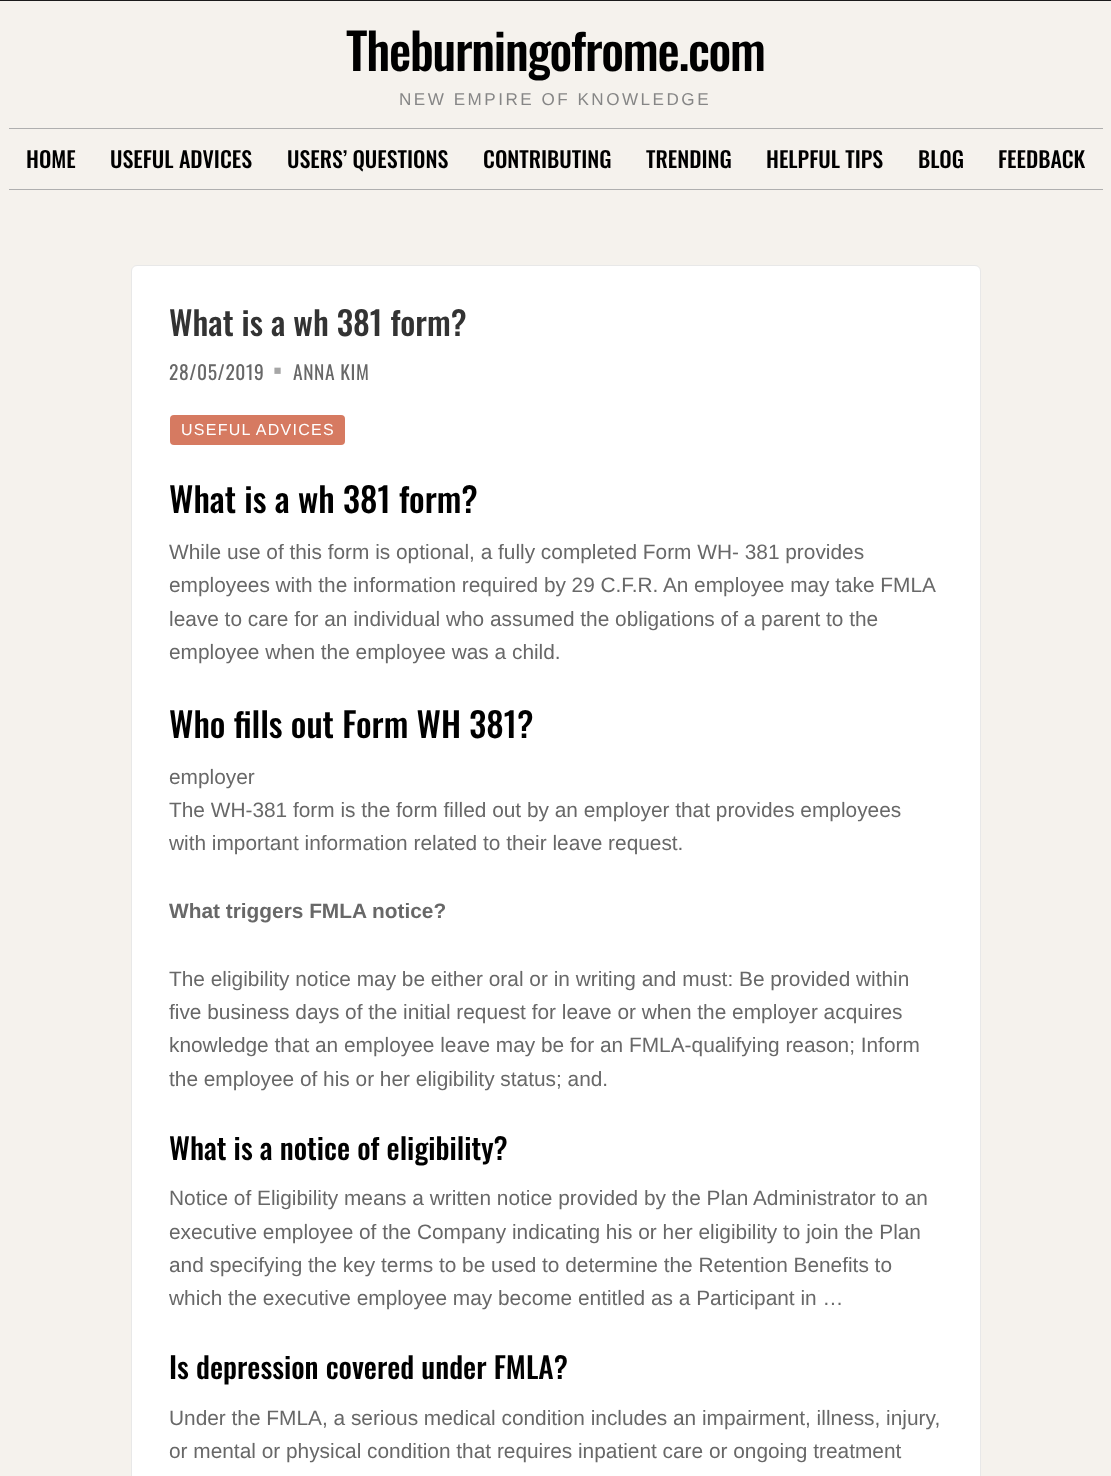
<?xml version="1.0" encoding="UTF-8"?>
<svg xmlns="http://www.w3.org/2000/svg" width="1111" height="1476">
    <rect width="100%" height="100%" fill="#F5F2ED"/>
    <rect x="0" y="0" width="1111" height="1" fill="#1B1B1B"/>
    <text x="346" y="71" font-family="Oswald" font-size="50" font-weight="500" letter-spacing="-1.25" fill="#000000">Theburningofrome.com</text>
    <text x="399" y="105" font-family="Liberation Sans" font-size="17.1" letter-spacing="2.5" fill="#868686">NEW EMPIRE OF KNOWLEDGE</text>
    <rect x="9" y="128" width="1094" height="1" fill="#AFAFAF"/>
    <rect x="9" y="189" width="1094" height="1" fill="#AFAFAF"/>
    <text x="26" y="168" font-family="Oswald" font-size="22" font-weight="500" fill="#000000">HOME</text>
    <text x="110" y="168" font-family="Oswald" font-size="22" font-weight="500" fill="#000000">USEFUL ADVICES</text>
    <text x="287" y="168" font-family="Oswald" font-size="22" font-weight="500" fill="#000000">USERS’ QUESTIONS</text>
    <text x="483" y="168" font-family="Oswald" font-size="22" font-weight="500" fill="#000000">CONTRIBUTING</text>
    <text x="646" y="168" font-family="Oswald" font-size="22" font-weight="500" fill="#000000">TRENDING</text>
    <text x="766" y="168" font-family="Oswald" font-size="22" font-weight="500" fill="#000000">HELPFUL TIPS</text>
    <text x="918" y="168" font-family="Oswald" font-size="22" font-weight="500" fill="#000000">BLOG</text>
    <text x="998" y="168" font-family="Oswald" font-size="22" font-weight="500" fill="#000000">FEEDBACK</text>
    <rect x="131.5" y="265.5" width="849" height="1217" rx="5.5" fill="#FFFFFF" stroke="#E8E8E8"/>
    <text x="169" y="336" font-family="Oswald" font-size="33" font-weight="500" fill="#333333">What is a wh 381 form?</text>
    <text x="169" y="380" font-family="Oswald" font-size="19.5" letter-spacing="0.6" fill="#686868">28/05/2019</text>
    <text x="273" y="386" font-family="Oswald" font-size="39" font-weight="700" letter-spacing="0.6" fill="#A6A6A6">·</text>
    <text x="293" y="380" font-family="Oswald" font-size="19.5" letter-spacing="0.6" fill="#686868">ANNA KIM</text>
    <rect x="170" y="415" width="175" height="30" rx="4" fill="#D67A61"/>
    <text x="181" y="435" font-family="Liberation Sans" font-size="16" letter-spacing="1.25" fill="#FFFFFF">USEFUL ADVICES</text>
    <text x="169" y="513" font-family="Oswald" font-size="34.25" font-weight="500" fill="#000000">What is a wh 381 form?</text>
    <text font-family="Liberation Sans" font-size="20.85" fill="#686868">
        <tspan x="169" y="559">While use of this form is optional, a fully completed Form WH- 381 provides</tspan>
        <tspan x="169" y="592" word-spacing="-0.1">employees with the information required by 29 C.F.R. An employee may take FMLA</tspan>
        <tspan x="169" y="626">leave to care for an individual who assumed the obligations of a parent to the</tspan>
        <tspan x="169" y="659">employee when the employee was a child.</tspan>
    </text>
    <text x="169" y="738" font-family="Oswald" font-size="34.25" font-weight="500" fill="#000000">Who fills out Form WH 381?</text>
    <text font-family="Liberation Sans" font-size="20.85" fill="#686868">
        <tspan x="169" y="784">employer</tspan>
        <tspan x="169" y="817">The WH-381 form is the form filled out by an employer that provides employees</tspan>
        <tspan x="169" y="850">with important information related to their leave request.</tspan>
    </text>
    <text x="169" y="918" font-family="Liberation Sans" font-size="20.85" font-weight="700" fill="#686868">What triggers FMLA notice?</text>
    <text font-family="Liberation Sans" font-size="20.85" fill="#686868">
        <tspan x="169" y="986">The eligibility notice may be either oral or in writing and must: Be provided within</tspan>
        <tspan x="169" y="1019">five business days of the initial request for leave or when the employer acquires</tspan>
        <tspan x="169" y="1052">knowledge that an employee leave may be for an FMLA-qualifying reason; Inform</tspan>
        <tspan x="169" y="1086">the employee of his or her eligibility status; and.</tspan>
    </text>
    <text x="169" y="1160" font-family="Oswald" font-size="29.4" font-weight="500" fill="#000000">What is a notice of eligibility?</text>
    <text font-family="Liberation Sans" font-size="20.85" fill="#686868">
        <tspan x="169" y="1205">Notice of Eligibility means a written notice provided by the Plan Administrator to an</tspan>
        <tspan x="169" y="1239">executive employee of the Company indicating his or her eligibility to join the Plan</tspan>
        <tspan x="169" y="1272">and specifying the key terms to be used to determine the Retention Benefits to</tspan>
        <tspan x="169" y="1305">which the executive employee may become entitled as a Participant in …</tspan>
    </text>
    <text x="169" y="1379" font-family="Oswald" font-size="29.4" font-weight="500" fill="#000000">Is depression covered under FMLA?</text>
    <text font-family="Liberation Sans" font-size="20.85" fill="#686868">
        <tspan x="169" y="1425">Under the FMLA, a serious medical condition includes an impairment, illness, injury,</tspan>
        <tspan x="169" y="1458">or mental or physical condition that requires inpatient care or ongoing treatment</tspan>
    </text>
</svg>
